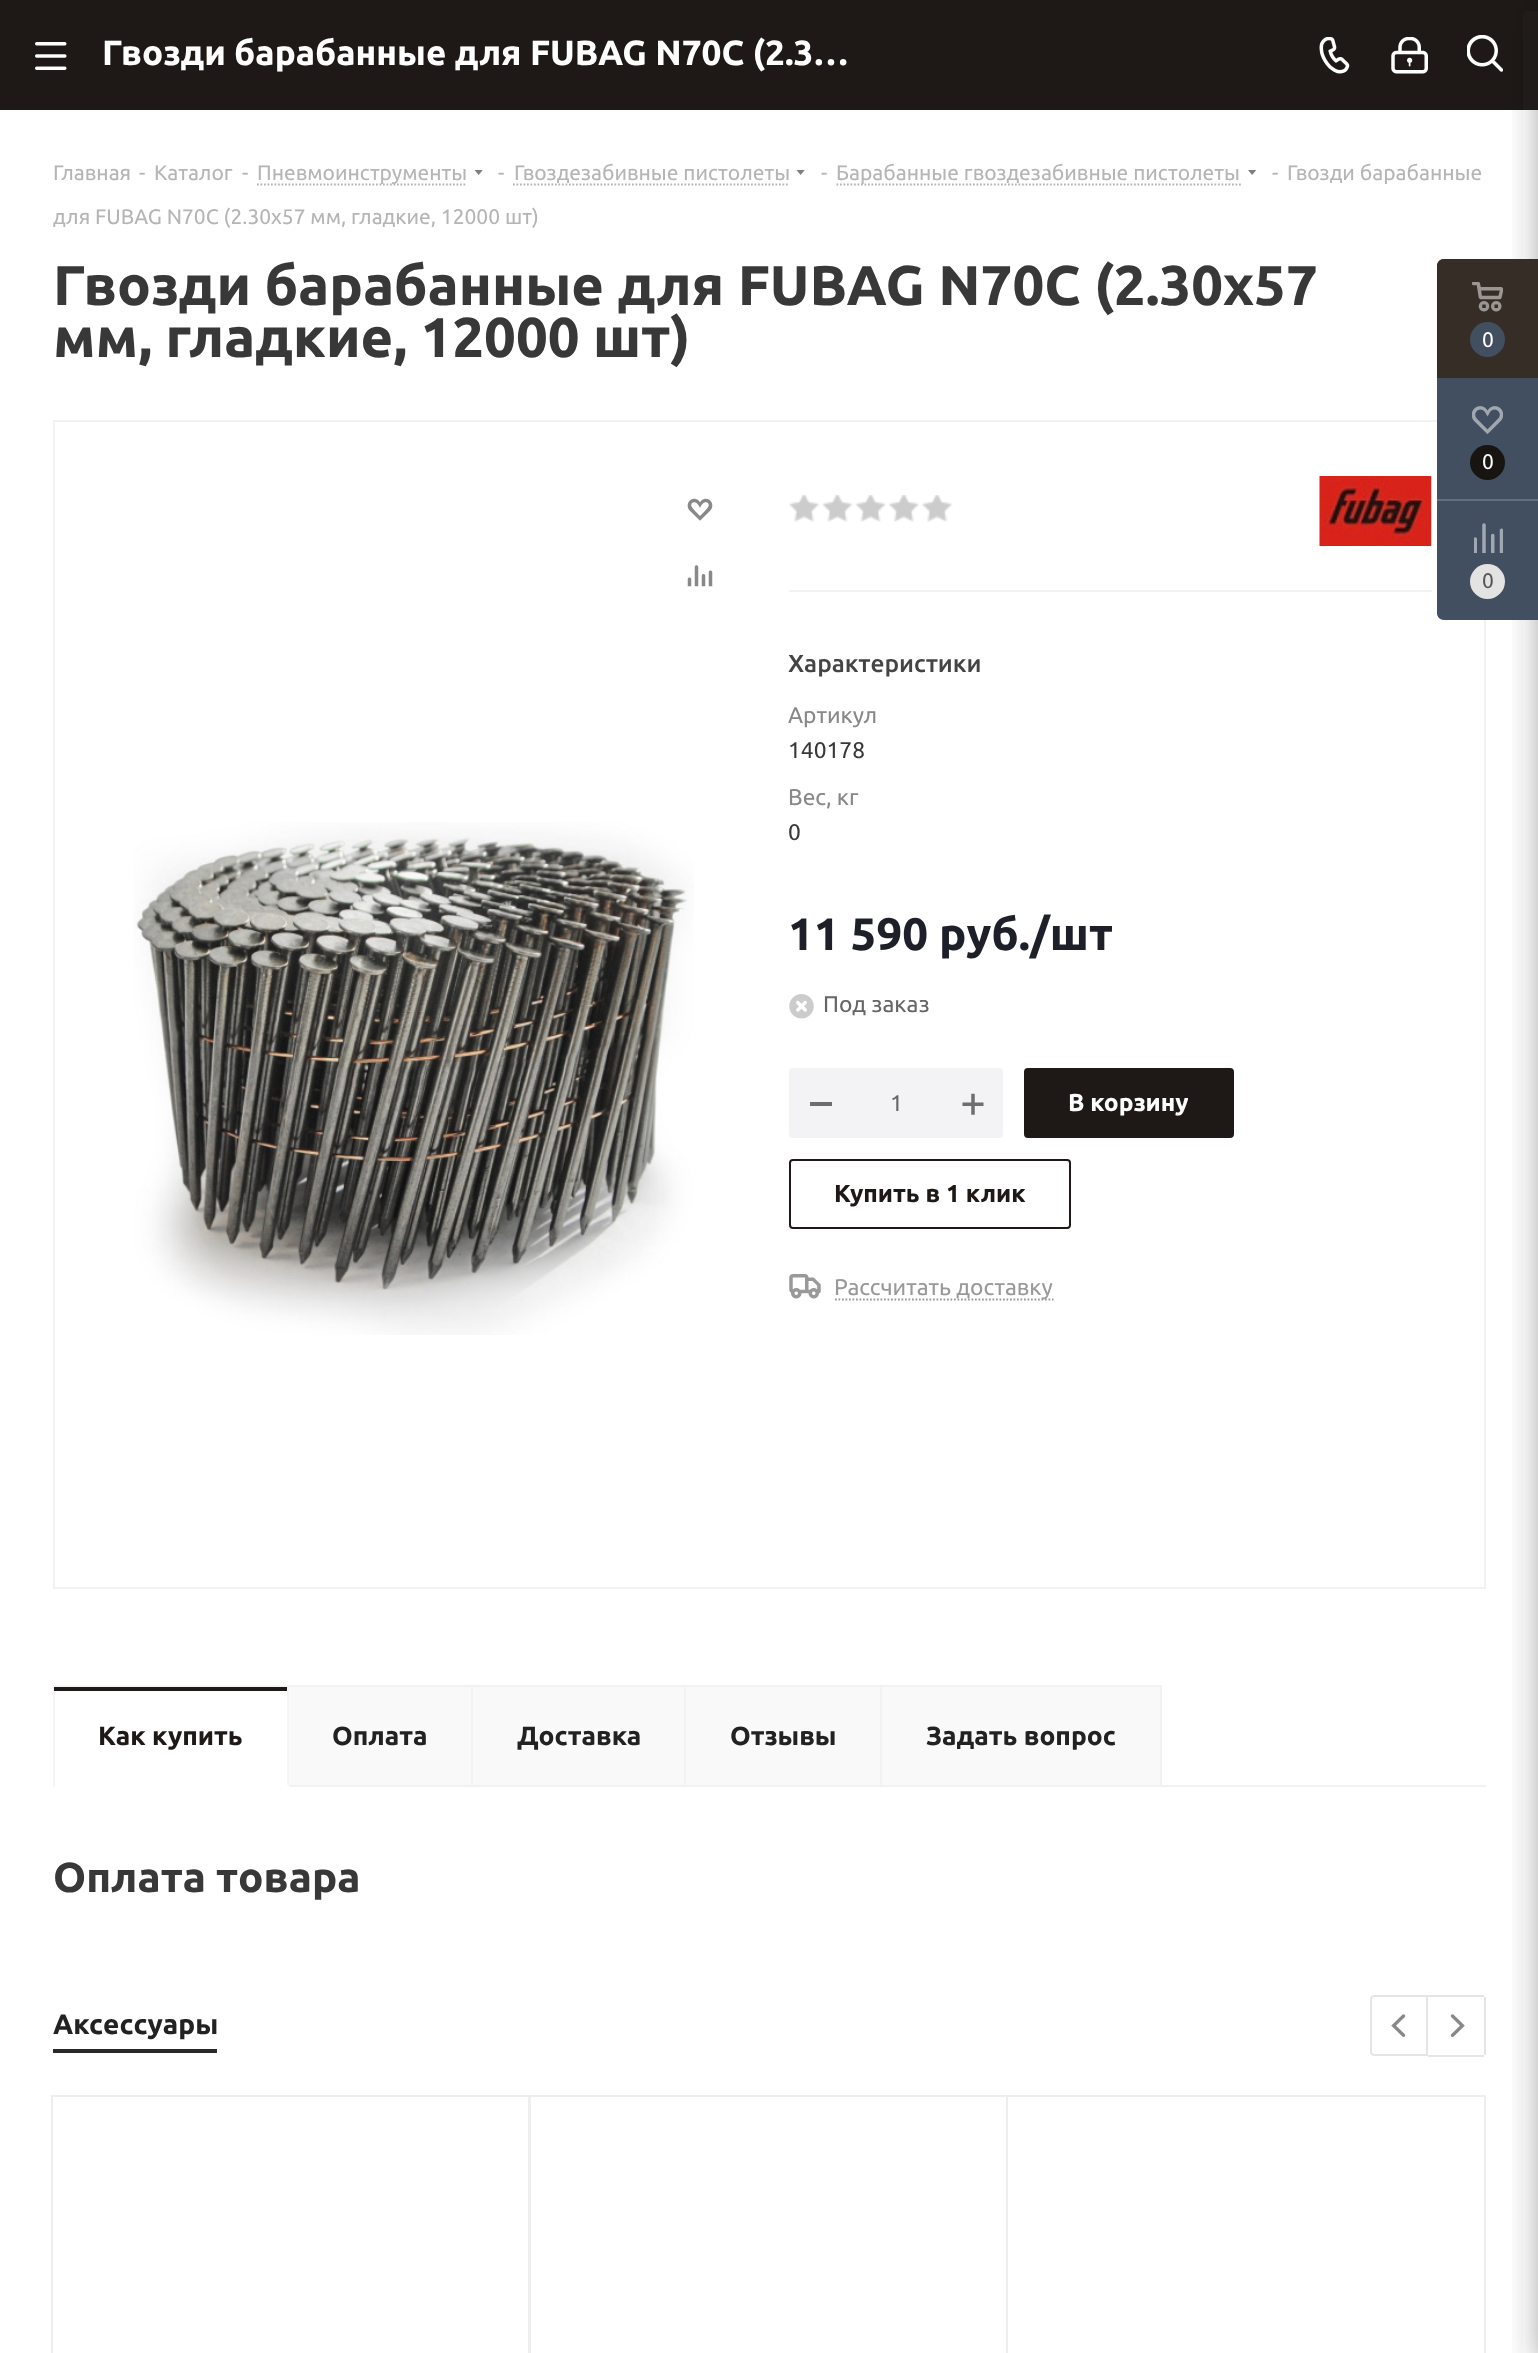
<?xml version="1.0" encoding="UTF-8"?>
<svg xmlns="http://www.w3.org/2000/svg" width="1538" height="2353">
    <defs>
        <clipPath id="clip1"><rect x="1069" y="1089" width="119" height="28"/></clipPath>
        <clipPath id="clip2"><rect x="35" y="2063" width="1468" height="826"/></clipPath>
        <filter id="blur1" x="-50%" y="-200%" width="200%" height="500%"><feGaussianBlur stdDeviation="16"/></filter>
    </defs>
    <rect width="100%" height="100%" fill="#FFFFFF"/>
    <rect x="0" y="0" width="1538" height="110" fill="#1E1916"/>
    <image x="35" y="42" width="32" height="28" href="img_01.png"/>
    <text x="102" y="65" font-family="Ubuntu" font-size="35" font-weight="700" fill="#FFFFFF">Гвозди барабанные для FUBAG N70C (2.3…</text>
    <image x="1319" y="37" width="31" height="37" href="img_02.png"/>
    <image x="1391" y="37" width="37" height="37" href="img_03.png"/>
    <image x="1467" y="35" width="36" height="37" href="img_04.png"/>
    <text x="53" y="180" font-family="Ubuntu" font-size="21" fill="#B6B5B5">Главная</text>
    <text x="139" y="180" font-family="Ubuntu" font-size="21" fill="#B6B5B5">-</text>
    <text x="154" y="180" font-family="Ubuntu" font-size="21" fill="#B6B5B5">Каталог</text>
    <text x="242" y="180" font-family="Ubuntu" font-size="21" fill="#B6B5B5">-</text>
    <path d="M 257 184.5 H 467" fill="none" stroke="#B4B4B4" stroke-width="1.8" stroke-dasharray="1.75 1.75"/>
    <text x="257" y="180" font-family="Ubuntu" font-size="21" fill="#B6B5B5">Пневмоинструменты</text>
    <image x="474" y="170" width="9" height="5" href="img_05.png"/>
    <text x="498" y="180" font-family="Ubuntu" font-size="21" fill="#B6B5B5">-</text>
    <path d="M 513 184.5 H 789" fill="none" stroke="#B4B4B4" stroke-width="1.8" stroke-dasharray="1.75 1.75"/>
    <text x="514" y="180" font-family="Ubuntu" font-size="21" fill="#B6B5B5">Гвоздезабивные пистолеты</text>
    <image x="796" y="170" width="9" height="5" href="img_05.png"/>
    <text x="821" y="180" font-family="Ubuntu" font-size="21" fill="#B6B5B5">-</text>
    <path d="M 836.5 184.5 H 1241" fill="none" stroke="#B4B4B4" stroke-width="1.8" stroke-dasharray="1.75 1.75"/>
    <text x="836" y="180" font-family="Ubuntu" font-size="21" fill="#B6B5B5">Барабанные гвоздезабивные пистолеты</text>
    <image x="1248" y="170" width="8" height="5" href="img_06.png"/>
    <text x="1272" y="180" font-family="Ubuntu" font-size="21" fill="#B6B5B5">-</text>
    <text x="1287" y="180" font-family="Ubuntu" font-size="21" fill="#B6B5B5">Гвозди барабанные</text>
    <text x="53" y="224" font-family="Ubuntu" font-size="21" fill="#B6B5B5">для FUBAG N70C (2.30x57 мм, гладкие, 12000 шт)</text>
    <text font-family="Ubuntu" font-size="56" font-weight="700" fill="#383838">
        <tspan x="53" y="305">Гвозди барабанные для FUBAG N70C (2.30x57</tspan>
        <tspan x="53" y="357">мм, гладкие, 12000 шт)</tspan>
    </text>
    <rect x="54" y="421" width="1431" height="1167" fill="none" stroke="#F2F2F2" stroke-width="2"/>
    <image x="687" y="498" width="26" height="23" href="img_07.png"/>
    <image x="687" y="565" width="26" height="22" href="img_08.png"/>
    <image x="133" y="822" width="561" height="513" href="img_09.png"/>
    <rect x="789" y="590" width="643" height="2" fill="#F2F2F2"/>
    <image x="789" y="495" width="31" height="27" href="img_10.png"/>
    <image x="822" y="495" width="31" height="27" href="img_11.png"/>
    <image x="855" y="495" width="31" height="27" href="img_12.png"/>
    <image x="889" y="495" width="30" height="27" href="img_13.png"/>
    <image x="922" y="495" width="31" height="27" href="img_14.png"/>
    <image x="1319" y="476" width="113" height="70" href="img_15.png"/>
    <text x="788" y="672" font-family="Ubuntu" font-size="24.5" font-weight="500" fill="#444444">Характеристики</text>
    <text x="788" y="723" font-family="Ubuntu" font-size="22.75" fill="#888888">Артикул</text>
    <text x="788" y="758" font-family="Ubuntu" font-size="22.75" fill="#383838">140178</text>
    <text x="788" y="805" font-family="Ubuntu" font-size="22.75" fill="#888888">Вес, кг</text>
    <text x="788" y="840" font-family="Ubuntu" font-size="22.75" fill="#383838">0</text>
    <text x="788" y="950" font-family="Ubuntu" font-size="45.5" font-weight="700" fill="#1D2029">11 590 руб./шт</text>
    <image x="789" y="994" width="25" height="25" href="img_16.png"/>
    <text x="823" y="1012" font-family="Ubuntu" font-size="22.75" fill="#666666">Под заказ</text>
    <rect x="790" y="1069" width="212" height="68" rx="3" fill="#F3F3F5" stroke="#F3F3F5" stroke-width="2"/>
    <rect x="810" y="1102" width="22" height="4" fill="#6D6D6D"/>
    <text x="890" y="1111" font-family="Ubuntu" font-size="22.75" fill="#666666">1</text>
    <image x="962" y="1093" width="22" height="22" href="img_17.png"/>
    <rect x="1025" y="1069" width="208" height="68" rx="3" fill="#1E1916" stroke="#1E1916" stroke-width="2"/>
    <g clip-path="url(#clip1)">
        <text x="1068" y="1111" font-family="Ubuntu" font-size="24.5" font-weight="700" fill="#FFFFFF">В корзину</text>
    </g>
    <rect x="790" y="1160" width="280" height="68" rx="3" fill="none" stroke="#1E1916" stroke-width="2"/>
    <text x="834" y="1202" font-family="Ubuntu" font-size="24.5" font-weight="700" fill="#1E1916">Купить в 1 клик</text>
    <image x="789" y="1274" width="32" height="25" href="img_18.png"/>
    <path d="M 835 1299.5 H 1053.5" fill="none" stroke="#999999" stroke-width="1.8" stroke-dasharray="1.75 1.75"/>
    <text x="834" y="1295" font-family="Ubuntu" font-size="22.75" fill="#999999">Рассчитать доставку</text>
    <rect x="1162" y="1785" width="324" height="2" fill="#F2F2F2"/>
    <rect x="288" y="1686" width="184" height="100" fill="#F9F9FA" stroke="#F2F2F2" stroke-width="2"/>
    <rect x="53" y="1685" width="236" height="2" fill="#F5F5F5"/>
    <rect x="287" y="1685" width="2" height="102" fill="#F5F5F5"/>
    <rect x="287" y="1785" width="2" height="2" fill="#FFFFFF"/>
    <rect x="53" y="1685" width="2" height="102" fill="#F5F5F5"/>
    <rect x="54" y="1687" width="233" height="4" fill="#1E1916"/>
    <text x="98" y="1745" font-family="Ubuntu" font-size="26.25" font-weight="700" fill="#1E1916">Как купить</text>
    <text x="332" y="1745" font-family="Ubuntu" font-size="26.25" font-weight="700" fill="#222222">Оплата</text>
    <rect x="472" y="1686" width="213" height="100" fill="#F9F9FA" stroke="#F2F2F2" stroke-width="2"/>
    <text x="517" y="1745" font-family="Ubuntu" font-size="26.25" font-weight="700" fill="#222222">Доставка</text>
    <rect x="685" y="1686" width="196" height="100" fill="#F9F9FA" stroke="#F2F2F2" stroke-width="2"/>
    <text x="730" y="1745" font-family="Ubuntu" font-size="26.25" font-weight="700" fill="#222222">Отзывы</text>
    <rect x="881" y="1686" width="280" height="100" fill="#F9F9FA" stroke="#F2F2F2" stroke-width="2"/>
    <text x="926" y="1745" font-family="Ubuntu" font-size="26.25" font-weight="700" fill="#222222">Задать вопрос</text>
    <text x="53" y="1892" font-family="Ubuntu" font-size="42" font-weight="700" fill="#383838">Оплата товара</text>
    <rect x="53" y="2049" width="164" height="4" fill="#292929"/>
    <text x="53" y="2034" font-family="Ubuntu" font-size="28" font-weight="700" fill="#222222">Аксессуары</text>
    <path d="M 1374 1996 H 1427 V 2055 H 1374 C 1372.5 2055 1371 2053.5 1371 2052 V 1999 C 1371 1997.5 1372.5 1996 1374 1996 Z" fill="none" stroke="#E5E5E5" stroke-width="2"/>
    <image x="1391" y="2014" width="15" height="23" href="img_19.png"/>
    <rect x="1428" y="1995" width="56" height="2" fill="#E5E5E5"/>
    <rect x="1484" y="1997" width="2" height="58" fill="#E5E5E5"/>
    <rect x="1428" y="2055" width="56" height="2" fill="#E5E5E5"/>
    <image x="1450" y="2014" width="15" height="23" href="img_20.png"/>
    <rect x="52" y="2096" width="477" height="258" fill="none" stroke="#EEEEEE" stroke-width="2"/>
    <rect x="530" y="2096" width="477" height="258" fill="none" stroke="#EEEEEE" stroke-width="2"/>
    <rect x="1007" y="2096" width="478" height="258" fill="none" stroke="#EEEEEE" stroke-width="2"/>
    <g clip-path="url(#clip2)">
        <rect x="1485" y="2096" width="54" height="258" fill="none" stroke="#EEEEEE" stroke-width="2"/>
    </g>
    <rect x="1486" y="2095" width="17" height="2" fill="#FFFFFF"/>
    <rect x="1538" y="11" width="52" height="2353" rx="4" fill="#2C2C2C" fill-opacity="0.4" filter="url(#blur1)"/>
    <path d="M 1444 259 H 1538 V 620 H 1444 C 1440 620 1437 617 1437 613 V 266 C 1437 262 1440 259 1444 259 Z" fill="#424F60"/>
    <path d="M 1444 259 H 1538 V 378 H 1437 V 266 C 1437 262 1440 259 1444 259 Z" fill="#362D27"/>
    <image x="1472" y="282" width="31" height="30" href="img_21.png"/>
    <circle cx="1487.5" cy="339.5" r="17.5" fill="#424F60"/>
    <text x="1482" y="347" font-family="Ubuntu" font-size="21" fill="#FFFFFF">0</text>
    <image x="1472" y="406" width="31" height="28" href="img_22.png"/>
    <circle cx="1487.5" cy="462.5" r="17.5" fill="#181411"/>
    <text x="1482" y="469" font-family="Ubuntu" font-size="21" fill="#FFFFFF">0</text>
    <rect x="1437" y="499" width="101" height="2" fill="#636F7D"/>
    <image x="1474" y="523" width="29" height="30" href="img_23.png"/>
    <circle cx="1487.5" cy="581.5" r="17.5" fill="#E3E3E3"/>
    <text x="1482" y="588" font-family="Ubuntu" font-size="21" fill="#555555">0</text>
</svg>
